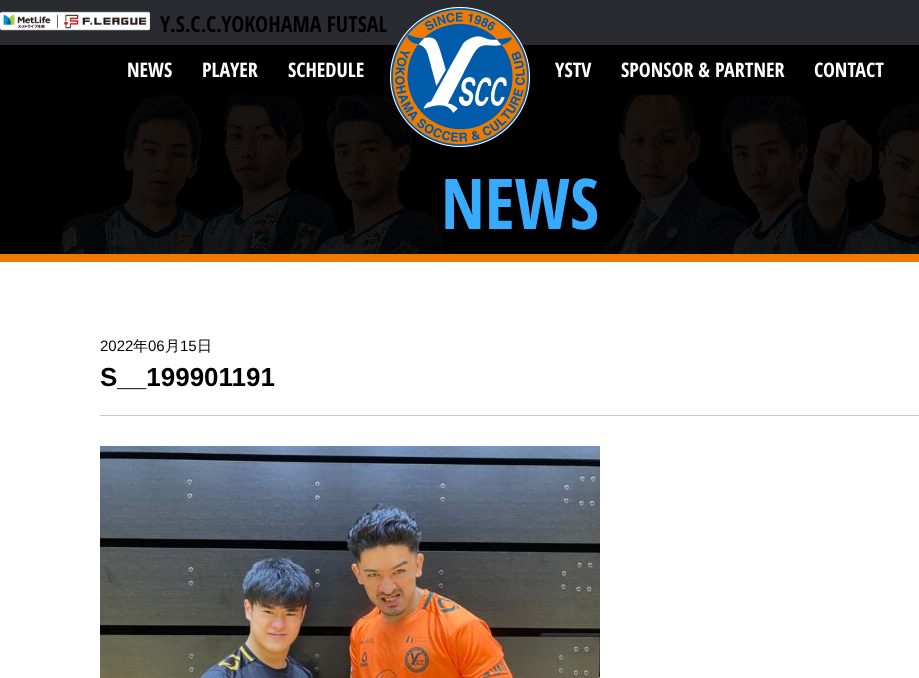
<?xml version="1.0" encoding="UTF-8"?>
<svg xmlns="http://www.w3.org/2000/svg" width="919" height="678">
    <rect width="100%" height="100%" fill="#000000"/>
    <rect x="0" y="0" width="919" height="45" fill="#292B31"/>
    <image x="0" y="11" width="150" height="20" href="img_01.png"/>
    <text x="160" y="32" font-family="Open Sans Condensed" font-size="22" font-weight="700" fill="#000000">Y.S.C.C.YOKOHAMA FUTSAL</text>
    <image x="60" y="95" width="859" height="159" href="img_03.png"/>
    <image x="390" y="7" width="140" height="140" href="img_02.png"/>
    <text x="127" y="77" font-family="Open Sans Condensed" font-size="20" font-weight="700" fill="#FFFFFF">NEWS</text>
    <text x="202" y="77" font-family="Open Sans Condensed" font-size="20" font-weight="700" fill="#FFFFFF">PLAYER</text>
    <text x="288" y="77" font-family="Open Sans Condensed" font-size="20" font-weight="700" fill="#FFFFFF">SCHEDULE</text>
    <text x="555" y="77" font-family="Open Sans Condensed" font-size="20" font-weight="700" fill="#FFFFFF">YSTV</text>
    <text x="621" y="77" font-family="Open Sans Condensed" font-size="20" font-weight="700" fill="#FFFFFF">SPONSOR &amp; PARTNER</text>
    <text x="814" y="77" font-family="Open Sans Condensed" font-size="20" font-weight="700" fill="#FFFFFF">CONTACT</text>
    <rect x="0" y="254" width="919" height="8" fill="#EE7A00"/>
    <text x="441" y="229" font-family="Open Sans Condensed" font-size="70" font-weight="700" fill="#38AAFF">NEWS</text>
    <rect x="0" y="262" width="919" height="416" fill="#FFFFFF"/>
    <rect x="100" y="415" width="819" height="1" fill="#C9C9C9"/>
    <text x="100" y="351" font-family="Liberation Sans" font-size="15" fill="#000000">2022</text>
    <text x="133" y="351" font-family="WenQuanYi Zen Hei" font-size="15" font-weight="500" fill="#000000">年</text>
    <text x="148" y="351" font-family="Liberation Sans" font-size="15" fill="#000000">06</text>
    <text x="165" y="351" font-family="WenQuanYi Zen Hei" font-size="15" font-weight="500" fill="#000000">月</text>
    <text x="180" y="351" font-family="Liberation Sans" font-size="15" fill="#000000">15</text>
    <text x="197" y="351" font-family="WenQuanYi Zen Hei" font-size="15" font-weight="500" fill="#000000">日</text>
    <text x="100" y="386" font-family="Liberation Sans" font-size="26" font-weight="700" fill="#000000">S__199901191</text>
    <image x="100" y="446" width="500" height="232" href="img_04.png"/>
</svg>
